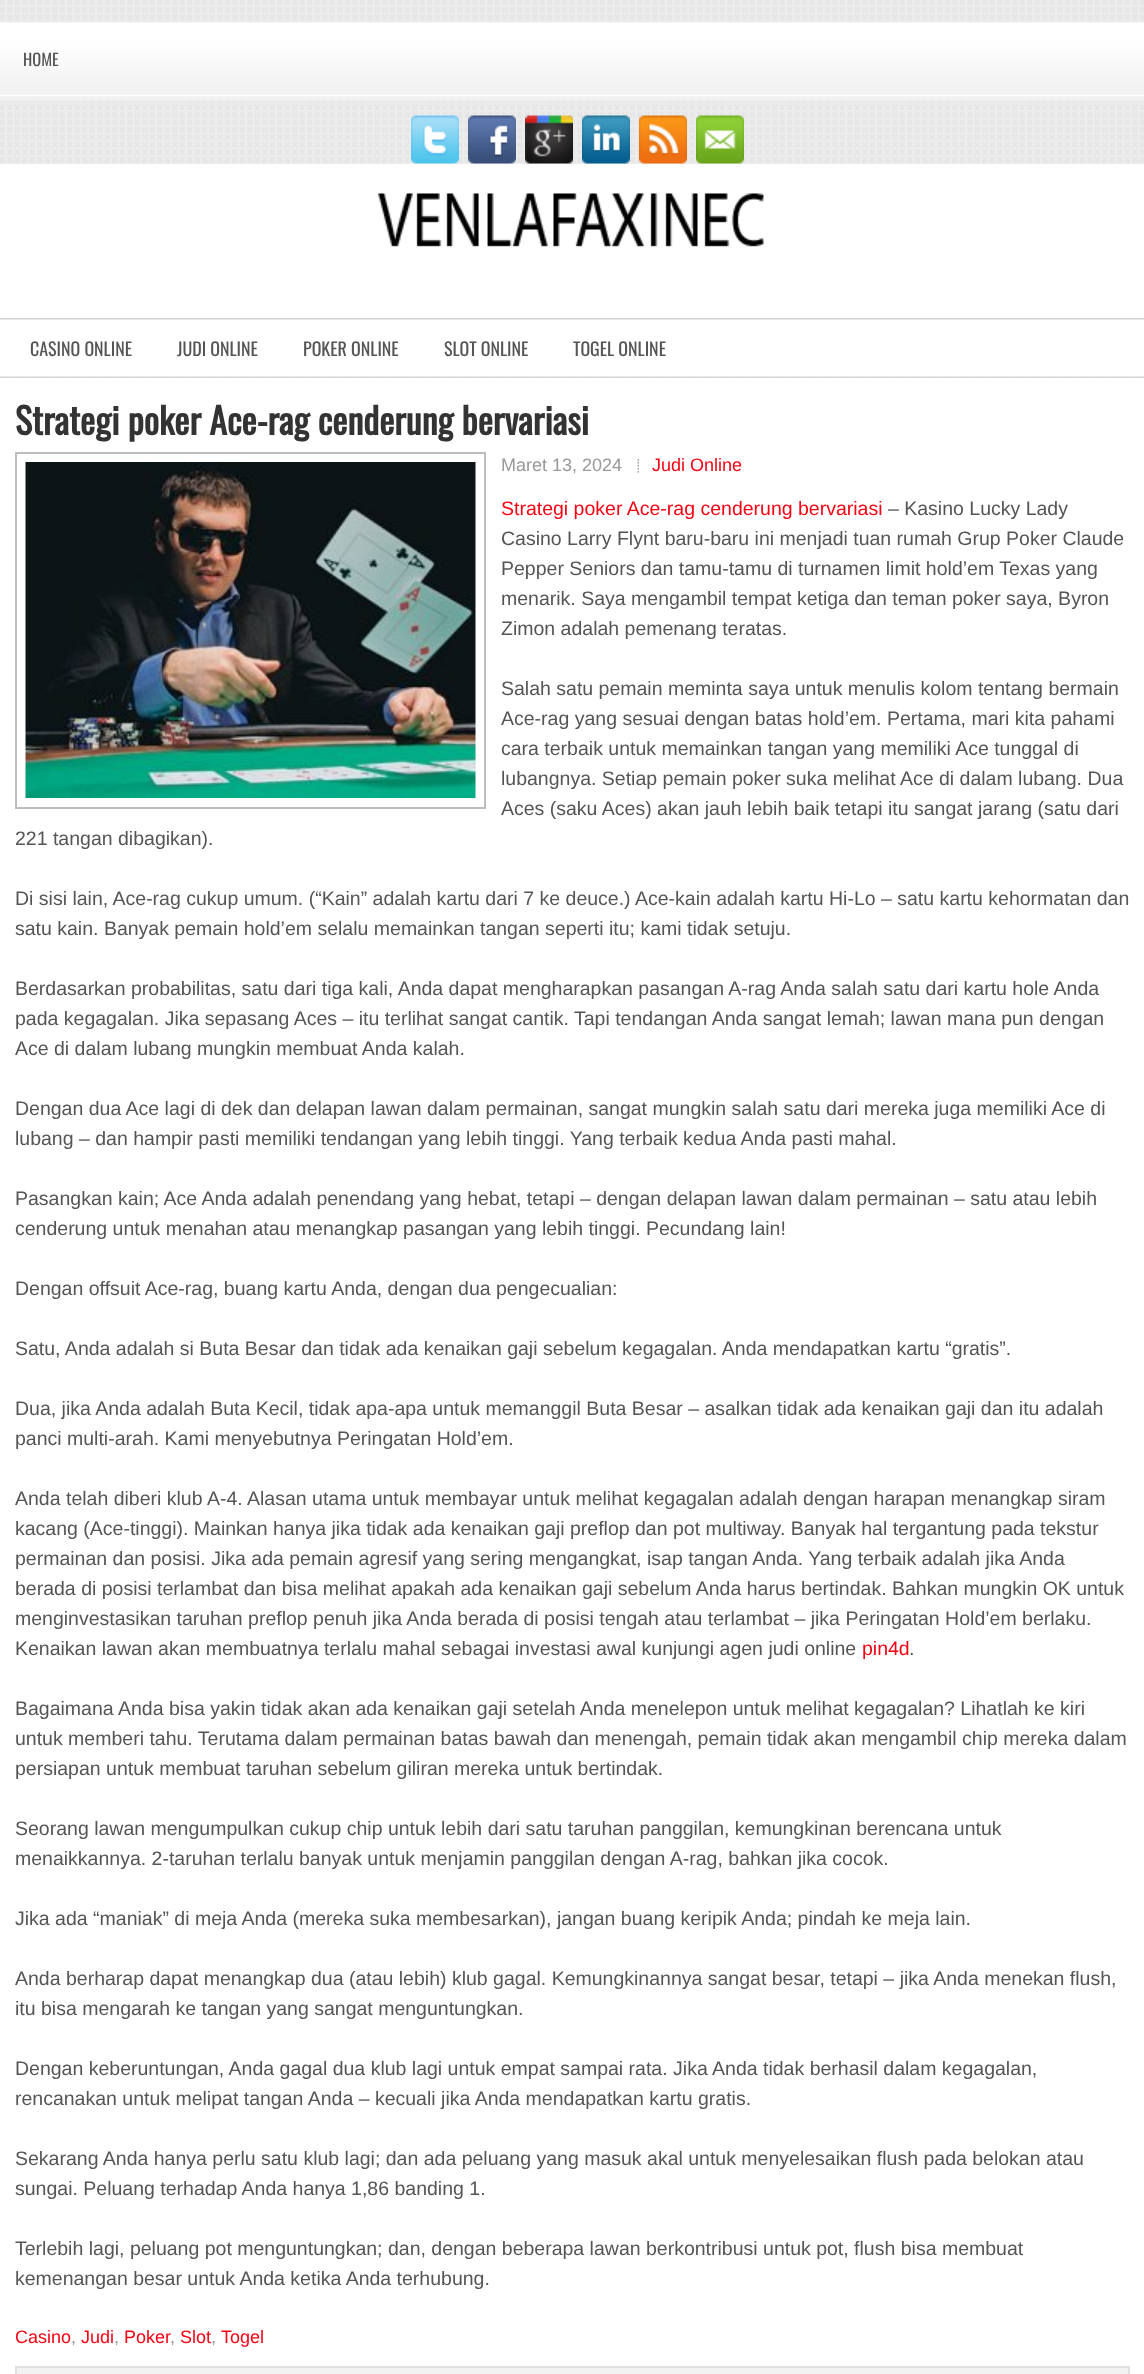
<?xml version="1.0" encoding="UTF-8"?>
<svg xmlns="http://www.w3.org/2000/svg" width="1144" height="2374">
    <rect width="100%" height="100%" fill="#FFFFFF"/>
    <image x="0" y="0" width="1144" height="378" href="img_01.png"/>
    <image x="0" y="22" width="1144" height="79" href="img_02.png"/>
    <rect x="0" y="100" width="81" height="1" fill="#F1F1F1"/>
    <text x="23" y="66" font-family="Oswald" font-size="16.5" fill="#555555">HOME</text>
    <image x="411" y="115" width="48" height="49" href="img_03.png"/>
    <image x="468" y="115" width="48" height="49" href="img_04.png"/>
    <image x="525" y="115" width="48" height="49" href="img_05.png"/>
    <image x="582" y="115" width="48" height="49" href="img_06.png"/>
    <image x="639" y="115" width="48" height="49" href="img_07.png"/>
    <image x="696" y="115" width="48" height="49" href="img_08.png"/>
    <rect x="0" y="164" width="1144" height="154" fill="#FFFFFF"/>
    <image x="378" y="193" width="386" height="54" href="img_09.png"/>
    <image x="0" y="318" width="1144" height="60" href="img_10.png"/>
    <text x="30" y="356" font-family="Oswald" font-size="18" fill="#555555">CASINO ONLINE</text>
    <text x="177" y="356" font-family="Oswald" font-size="18" fill="#555555">JUDI ONLINE</text>
    <text x="303" y="356" font-family="Oswald" font-size="18" fill="#555555">POKER ONLINE</text>
    <text x="444" y="356" font-family="Oswald" font-size="18" fill="#555555">SLOT ONLINE</text>
    <text x="573" y="356" font-family="Oswald" font-size="18" fill="#555555">TOGEL ONLINE</text>
    <text x="15" y="435" font-family="Oswald" font-size="36" font-weight="700" fill="#333333">Strategi poker Ace-rag cenderung bervariasi</text>
    <rect x="16" y="453" width="469" height="355" fill="none" stroke="#BDBDBD" stroke-width="2"/>
    <image x="25" y="462" width="451" height="336" href="img_11.png"/>
    <text x="501" y="471" font-family="Liberation Sans" font-size="18" fill="#999999">Maret 13, 2024</text>
    <image x="637" y="459" width="2" height="14" href="img_12.png"/>
    <text x="652" y="471" font-family="Liberation Sans" font-size="18" fill="#F70413">Judi Online</text>
    <text x="501" y="515" font-family="Liberation Sans" font-size="19.5" fill="#F70413">Strategi poker Ace-rag cenderung bervariasi</text>
    <text x="888" y="515" font-family="Liberation Sans" font-size="19.5" fill="#555555">– Kasino Lucky Lady</text>
    <text font-family="Liberation Sans" font-size="19.5" fill="#555555">
        <tspan x="501" y="545">Casino Larry Flynt baru-baru ini menjadi tuan rumah Grup Poker Claude</tspan>
        <tspan x="501" y="575">Pepper Seniors dan tamu-tamu di turnamen limit hold’em Texas yang</tspan>
        <tspan x="501" y="605">menarik. Saya mengambil tempat ketiga dan teman poker saya, Byron</tspan>
        <tspan x="501" y="635">Zimon adalah pemenang teratas.</tspan>
    </text>
    <text font-family="Liberation Sans" font-size="19.5" fill="#555555">
        <tspan x="501" y="695">Salah satu pemain meminta saya untuk menulis kolom tentang bermain</tspan>
        <tspan x="501" y="725">Ace-rag yang sesuai dengan batas hold’em. Pertama, mari kita pahami</tspan>
        <tspan x="501" y="755">cara terbaik untuk memainkan tangan yang memiliki Ace tunggal di</tspan>
        <tspan x="501" y="785">lubangnya. Setiap pemain poker suka melihat Ace di dalam lubang. Dua</tspan>
        <tspan x="501" y="815">Aces (saku Aces) akan jauh lebih baik tetapi itu sangat jarang (satu dari</tspan>
    </text>
    <text x="15" y="845" font-family="Liberation Sans" font-size="19.5" fill="#555555">221 tangan dibagikan).</text>
    <text font-family="Liberation Sans" font-size="19.5" fill="#555555">
        <tspan x="15" y="905">Di sisi lain, Ace-rag cukup umum. (“Kain” adalah kartu dari 7 ke deuce.) Ace-kain adalah kartu Hi-Lo – satu kartu kehormatan dan</tspan>
        <tspan x="15" y="935">satu kain. Banyak pemain hold’em selalu memainkan tangan seperti itu; kami tidak setuju.</tspan>
    </text>
    <text font-family="Liberation Sans" font-size="19.5" fill="#555555">
        <tspan x="15" y="995">Berdasarkan probabilitas, satu dari tiga kali, Anda dapat mengharapkan pasangan A-rag Anda salah satu dari kartu hole Anda</tspan>
        <tspan x="15" y="1025">pada kegagalan. Jika sepasang Aces – itu terlihat sangat cantik. Tapi tendangan Anda sangat lemah; lawan mana pun dengan</tspan>
        <tspan x="15" y="1055">Ace di dalam lubang mungkin membuat Anda kalah.</tspan>
    </text>
    <text font-family="Liberation Sans" font-size="19.5" fill="#555555">
        <tspan x="15" y="1115">Dengan dua Ace lagi di dek dan delapan lawan dalam permainan, sangat mungkin salah satu dari mereka juga memiliki Ace di</tspan>
        <tspan x="15" y="1145">lubang – dan hampir pasti memiliki tendangan yang lebih tinggi. Yang terbaik kedua Anda pasti mahal.</tspan>
    </text>
    <text font-family="Liberation Sans" font-size="19.5" fill="#555555">
        <tspan x="15" y="1205">Pasangkan kain; Ace Anda adalah penendang yang hebat, tetapi – dengan delapan lawan dalam permainan – satu atau lebih</tspan>
        <tspan x="15" y="1235">cenderung untuk menahan atau menangkap pasangan yang lebih tinggi. Pecundang lain!</tspan>
    </text>
    <text x="15" y="1295" font-family="Liberation Sans" font-size="19.5" fill="#555555">Dengan offsuit Ace-rag, buang kartu Anda, dengan dua pengecualian:</text>
    <text x="15" y="1355" font-family="Liberation Sans" font-size="19.5" fill="#555555">Satu, Anda adalah si Buta Besar dan tidak ada kenaikan gaji sebelum kegagalan. Anda mendapatkan kartu “gratis”.</text>
    <text font-family="Liberation Sans" font-size="19.5" fill="#555555">
        <tspan x="15" y="1415">Dua, jika Anda adalah Buta Kecil, tidak apa-apa untuk memanggil Buta Besar – asalkan tidak ada kenaikan gaji dan itu adalah</tspan>
        <tspan x="15" y="1445">panci multi-arah. Kami menyebutnya Peringatan Hold’em.</tspan>
    </text>
    <text font-family="Liberation Sans" font-size="19.5" fill="#555555">
        <tspan x="15" y="1505">Anda telah diberi klub A-4. Alasan utama untuk membayar untuk melihat kegagalan adalah dengan harapan menangkap siram</tspan>
        <tspan x="15" y="1535">kacang (Ace-tinggi). Mainkan hanya jika tidak ada kenaikan gaji preflop dan pot multiway. Banyak hal tergantung pada tekstur</tspan>
        <tspan x="15" y="1565">permainan dan posisi. Jika ada pemain agresif yang sering mengangkat, isap tangan Anda. Yang terbaik adalah jika Anda</tspan>
        <tspan x="15" y="1595">berada di posisi terlambat dan bisa melihat apakah ada kenaikan gaji sebelum Anda harus bertindak. Bahkan mungkin OK untuk</tspan>
        <tspan x="15" y="1625">menginvestasikan taruhan preflop penuh jika Anda berada di posisi tengah atau terlambat – jika Peringatan Hold’em berlaku.</tspan>
        <tspan x="15" y="1655">Kenaikan lawan akan membuatnya terlalu mahal sebagai investasi awal kunjungi agen judi online</tspan>
    </text>
    <text x="862" y="1655" font-family="Liberation Sans" font-size="19.5" fill="#F70413">pin4d</text>
    <text x="909" y="1655" font-family="Liberation Sans" font-size="19.5" fill="#555555">.</text>
    <text font-family="Liberation Sans" font-size="19.5" fill="#555555">
        <tspan x="15" y="1715">Bagaimana Anda bisa yakin tidak akan ada kenaikan gaji setelah Anda menelepon untuk melihat kegagalan? Lihatlah ke kiri</tspan>
        <tspan x="15" y="1745">untuk memberi tahu. Terutama dalam permainan batas bawah dan menengah, pemain tidak akan mengambil chip mereka dalam</tspan>
        <tspan x="15" y="1775">persiapan untuk membuat taruhan sebelum giliran mereka untuk bertindak.</tspan>
    </text>
    <text font-family="Liberation Sans" font-size="19.5" fill="#555555">
        <tspan x="15" y="1835">Seorang lawan mengumpulkan cukup chip untuk lebih dari satu taruhan panggilan, kemungkinan berencana untuk</tspan>
        <tspan x="15" y="1865">menaikkannya. 2-taruhan terlalu banyak untuk menjamin panggilan dengan A-rag, bahkan jika cocok.</tspan>
    </text>
    <text x="15" y="1925" font-family="Liberation Sans" font-size="19.5" fill="#555555">Jika ada “maniak” di meja Anda (mereka suka membesarkan), jangan buang keripik Anda; pindah ke meja lain.</text>
    <text font-family="Liberation Sans" font-size="19.5" fill="#555555">
        <tspan x="15" y="1985">Anda berharap dapat menangkap dua (atau lebih) klub gagal. Kemungkinannya sangat besar, tetapi – jika Anda menekan flush,</tspan>
        <tspan x="15" y="2015">itu bisa mengarah ke tangan yang sangat menguntungkan.</tspan>
    </text>
    <text font-family="Liberation Sans" font-size="19.5" fill="#555555">
        <tspan x="15" y="2075">Dengan keberuntungan, Anda gagal dua klub lagi untuk empat sampai rata. Jika Anda tidak berhasil dalam kegagalan,</tspan>
        <tspan x="15" y="2105">rencanakan untuk melipat tangan Anda – kecuali jika Anda mendapatkan kartu gratis.</tspan>
    </text>
    <text font-family="Liberation Sans" font-size="19.5" fill="#555555">
        <tspan x="15" y="2165">Sekarang Anda hanya perlu satu klub lagi; dan ada peluang yang masuk akal untuk menyelesaikan flush pada belokan atau</tspan>
        <tspan x="15" y="2195">sungai. Peluang terhadap Anda hanya 1,86 banding 1.</tspan>
    </text>
    <text font-family="Liberation Sans" font-size="19.5" fill="#555555">
        <tspan x="15" y="2255">Terlebih lagi, peluang pot menguntungkan; dan, dengan beberapa lawan berkontribusi untuk pot, flush bisa membuat</tspan>
        <tspan x="15" y="2285">kemenangan besar untuk Anda ketika Anda terhubung.</tspan>
    </text>
    <text x="15" y="2343" font-family="Liberation Sans" font-size="18" fill="#F70413">Casino</text>
    <text x="71" y="2343" font-family="Liberation Sans" font-size="18" fill="#999999">,</text>
    <text x="81" y="2343" font-family="Liberation Sans" font-size="18" fill="#F70413">Judi</text>
    <text x="114" y="2343" font-family="Liberation Sans" font-size="18" fill="#999999">,</text>
    <text x="124" y="2343" font-family="Liberation Sans" font-size="18" fill="#F70413">Poker</text>
    <text x="170" y="2343" font-family="Liberation Sans" font-size="18" fill="#999999">,</text>
    <text x="180" y="2343" font-family="Liberation Sans" font-size="18" fill="#F70413">Slot</text>
    <text x="211" y="2343" font-family="Liberation Sans" font-size="18" fill="#999999">,</text>
    <text x="221" y="2343" font-family="Liberation Sans" font-size="18" fill="#F70413">Togel</text>
    <rect x="16" y="2367" width="1113" height="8" fill="#F2F2F2" stroke="#E0E0E0" stroke-width="2"/>
</svg>
